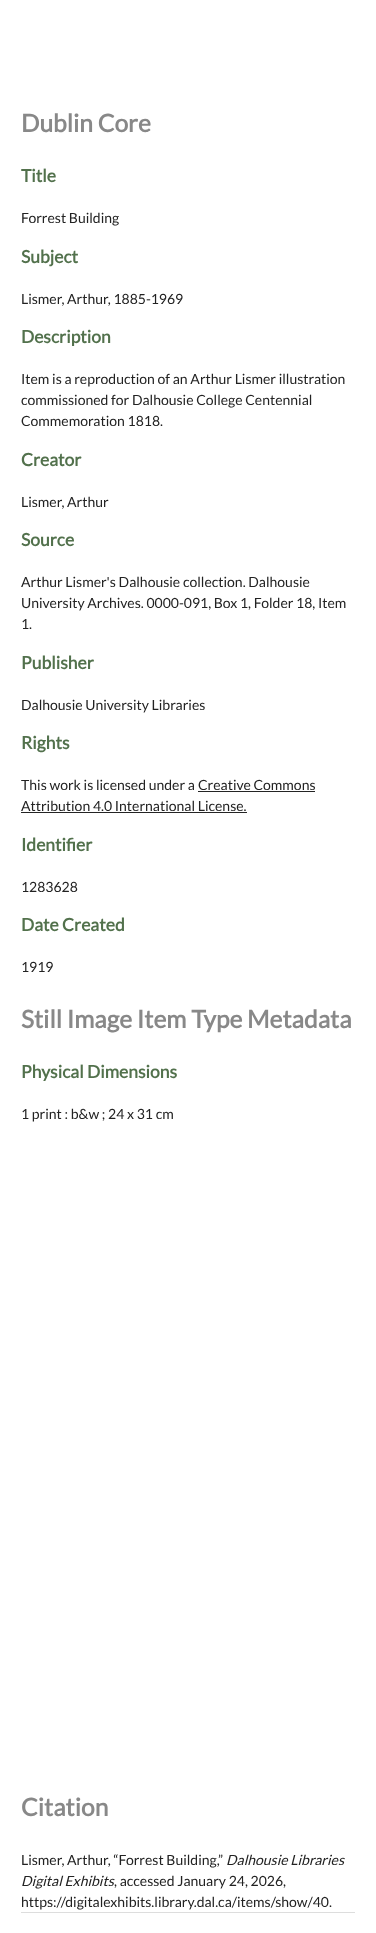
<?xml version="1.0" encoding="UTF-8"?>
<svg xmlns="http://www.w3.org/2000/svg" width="376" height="1933">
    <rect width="100%" height="100%" fill="#FFFFFF"/>
    <text x="21" y="132" font-family="Lato" font-size="24.5" font-weight="700" fill="#888888">Dublin Core</text>
    <text x="21" y="182" font-family="Lato" font-size="17.5" font-weight="700" fill="#52714C">Title</text>
    <text x="21" y="223" font-family="Lato" font-size="14" fill="#222222">Forrest Building</text>
    <text x="21" y="263" font-family="Lato" font-size="17.5" font-weight="700" fill="#52714C">Subject</text>
    <text x="21" y="304" font-family="Lato" font-size="14" fill="#222222">Lismer, Arthur, 1885-1969</text>
    <text x="21" y="343" font-family="Lato" font-size="17.5" font-weight="700" fill="#52714C">Description</text>
    <text font-family="Lato" font-size="14" fill="#222222">
        <tspan x="21" y="384">Item is a reproduction of an Arthur Lismer illustration</tspan>
        <tspan x="21" y="405">commissioned for Dalhousie College Centennial</tspan>
        <tspan x="21" y="426">Commemoration 1818.</tspan>
    </text>
    <text x="21" y="466" font-family="Lato" font-size="17.5" font-weight="700" fill="#52714C">Creator</text>
    <text x="21" y="507" font-family="Lato" font-size="14" fill="#222222">Lismer, Arthur</text>
    <text x="21" y="546" font-family="Lato" font-size="17.5" font-weight="700" fill="#52714C">Source</text>
    <text font-family="Lato" font-size="14" fill="#222222">
        <tspan x="21" y="587">Arthur Lismer's Dalhousie collection. Dalhousie</tspan>
        <tspan x="21" y="608">University Archives. 0000-091, Box 1, Folder 18, Item</tspan>
        <tspan x="21" y="629">1.</tspan>
    </text>
    <text x="21" y="669" font-family="Lato" font-size="17.5" font-weight="700" fill="#52714C">Publisher</text>
    <text x="21" y="710" font-family="Lato" font-size="14" fill="#222222">Dalhousie University Libraries</text>
    <text x="21" y="749" font-family="Lato" font-size="17.5" font-weight="700" fill="#52714C">Rights</text>
    <text x="21" y="790" font-family="Lato" font-size="14" fill="#222222">This work is licensed under a</text>
    <text x="198" y="790" font-family="Lato" font-size="14" fill="#222222">Creative Commons</text>
    <rect x="198" y="791" width="117" height="1" fill="#242424"/>
    <text x="21" y="811" font-family="Lato" font-size="14" fill="#222222">Attribution 4.0 International License.</text>
    <rect x="21" y="812" width="226" height="1" fill="#242424"/>
    <text x="21" y="851" font-family="Lato" font-size="17.5" font-weight="700" fill="#52714C">Identifier</text>
    <text x="21" y="892" font-family="Lato" font-size="14" fill="#222222">1283628</text>
    <text x="21" y="931" font-family="Lato" font-size="17.5" font-weight="700" fill="#52714C">Date Created</text>
    <text x="21" y="972" font-family="Lato" font-size="14" fill="#222222">1919</text>
    <text x="21" y="1028" font-family="Lato" font-size="24.5" font-weight="700" fill="#888888">Still Image Item Type Metadata</text>
    <text x="21" y="1078" font-family="Lato" font-size="17.5" font-weight="700" fill="#52714C">Physical Dimensions</text>
    <text x="21" y="1119" font-family="Lato" font-size="14" fill="#222222">1 print : b&amp;w ; 24 x 31 cm</text>
    <text x="21" y="1816" font-family="Lato" font-size="24.5" font-weight="700" fill="#888888">Citation</text>
    <text x="21" y="1865" font-family="Lato" font-size="14" fill="#222222">Lismer, Arthur, “Forrest Building,”</text>
    <text x="226" y="1865" font-family="Lato" font-size="14" font-style="italic" fill="#222222">Dalhousie Libraries</text>
    <text x="21" y="1886" font-family="Lato" font-size="14" font-style="italic" fill="#222222">Digital Exhibits</text>
    <text x="114" y="1886" font-family="Lato" font-size="14" fill="#222222">, accessed January 24, 2026,</text>
    <text x="21" y="1907" font-family="Lato" font-size="14" fill="#222222">https://digitalexhibits.library.dal.ca/items/show/40.</text>
    <rect x="21" y="1912" width="334" height="1" fill="#DDDDDD"/>
</svg>
